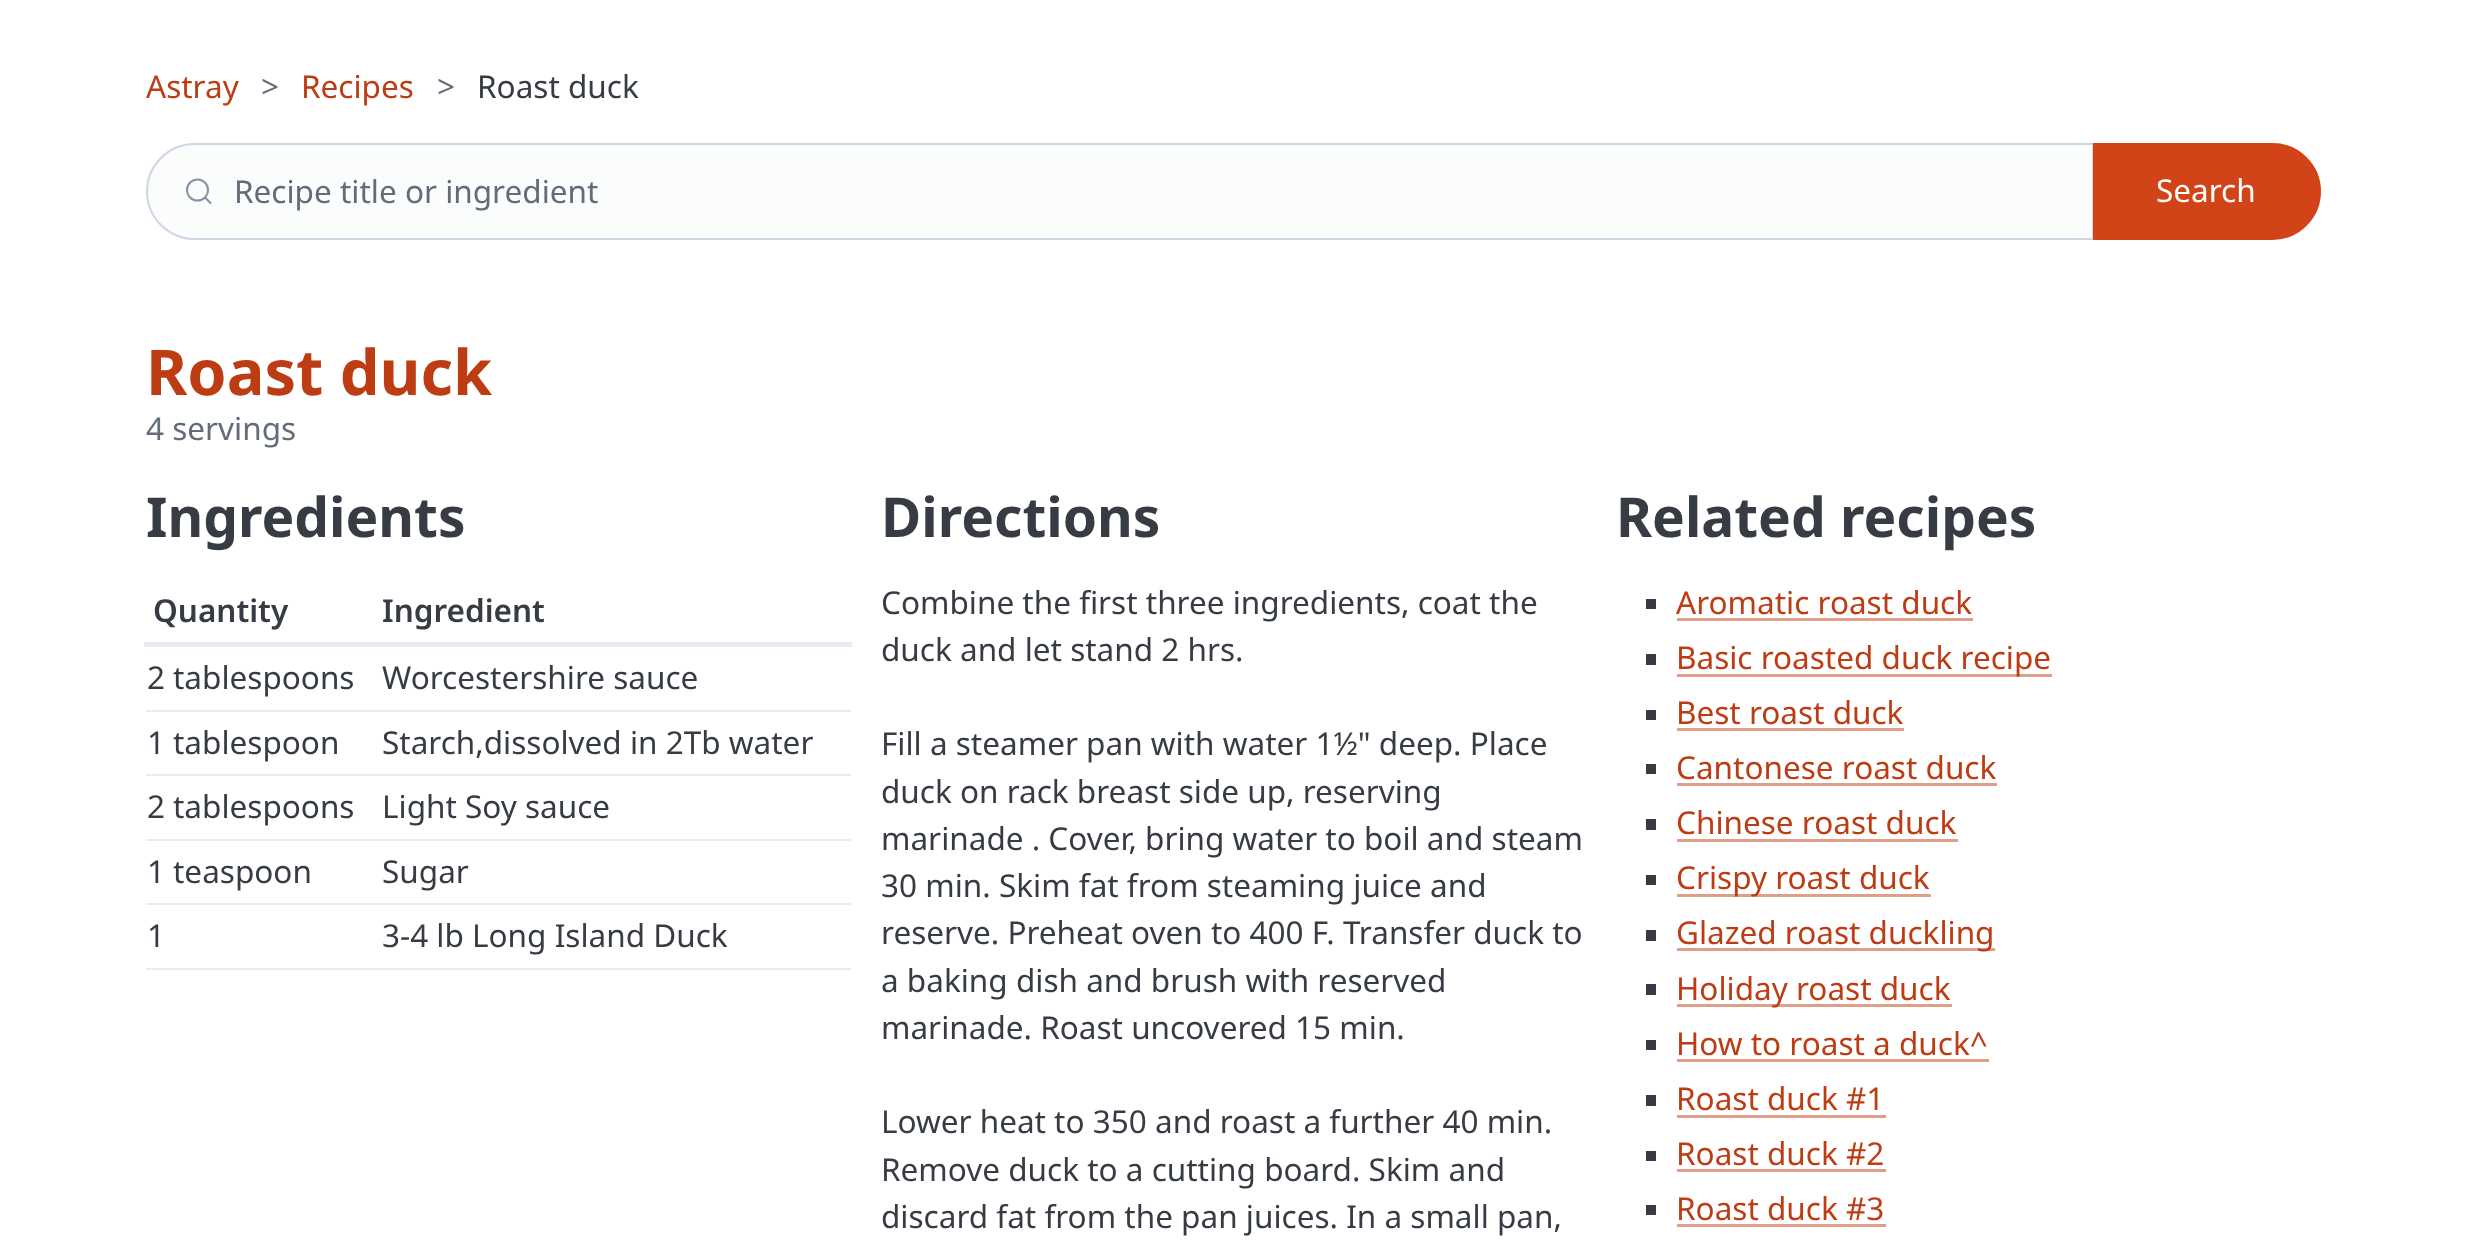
<?xml version="1.0" encoding="UTF-8"?>
<svg xmlns="http://www.w3.org/2000/svg" width="2466" height="1245">
    <rect width="100%" height="100%" fill="#FFFFFF"/>
    <text x="146" y="98" font-family="Noto Sans" font-size="31.5" fill="#BD3C13">Astray</text>
    <text x="261" y="98" font-family="Noto Sans" font-size="31.5" fill="#646B79">&gt;</text>
    <text x="301" y="98" font-family="Noto Sans" font-size="31.5" fill="#BD3C13">Recipes</text>
    <text x="437" y="98" font-family="Noto Sans" font-size="31.5" fill="#646B79">&gt;</text>
    <text x="477" y="98" font-family="Noto Sans" font-size="31.5" fill="#373C44">Roast duck</text>
    <path d="M 194.5 143 H 2094 V 240 H 194.5 C 167.5 240 146 218.5 146 191.5 C 146 164.5 167.5 143 194.5 143 Z" fill="#FBFCFC"/>
    <circle cx="197.5" cy="190" r="10.5" fill="none" stroke="#8891A4" stroke-width="2"/>
    <path d="M 210.5 203 L 205 197.5" fill="none" stroke="#8891A4" stroke-width="2" stroke-linecap="round" stroke-linejoin="round"/>
    <path d="M 194.5 144 H 2093 V 239 H 194.5 C 168.5 239 147 217.5 147 191.5 C 147 165.5 168.5 144 194.5 144 Z" fill="none" stroke="#CFD5E2" stroke-width="2"/>
    <text x="234" y="203" font-family="Noto Sans" font-size="31.5" fill="#646B79">Recipe title or ingredient</text>
    <path d="M 2094 144 H 2272.5 C 2298.5 144 2320 165.5 2320 191.5 C 2320 217.5 2298.5 239 2272.5 239 H 2094 Z" fill="#D24317" stroke="#D24317" stroke-width="2"/>
    <text x="2156" y="202" font-family="Noto Sans" font-size="31.5" fill="#FFFFFF">Search</text>
    <text x="146" y="395" font-family="Noto Sans" font-size="63" font-weight="700" fill="#BD3C13">Roast duck</text>
    <text x="146" y="440" font-family="Noto Sans" font-size="31.5" fill="#646B79">4 servings</text>
    <text x="146" y="537" font-family="Noto Sans" font-size="55" font-weight="700" fill="#373C44">Ingredients</text>
    <text x="153" y="622" font-family="Noto Sans" font-size="31.5" font-weight="600" fill="#373C44">Quantity</text>
    <rect x="144" y="642" width="708" height="5" fill="#E7EAF0"/>
    <text x="382" y="622" font-family="Noto Sans" font-size="31.5" font-weight="600" fill="#373C44">Ingredient</text>
    <text x="147" y="689" font-family="Noto Sans" font-size="31.5" fill="#373C44">2</text>
    <text x="173" y="689" font-family="Noto Sans" font-size="31.5" fill="#373C44">tablespoons</text>
    <rect x="146" y="710" width="705" height="2" fill="#E7EAF0"/>
    <text x="382" y="689" font-family="Noto Sans" font-size="31.5" fill="#373C44">Worcestershire sauce</text>
    <text x="147" y="754" font-family="Noto Sans" font-size="31.5" fill="#373C44">1</text>
    <text x="173" y="754" font-family="Noto Sans" font-size="31.5" fill="#373C44">tablespoon</text>
    <rect x="146" y="774" width="705" height="2" fill="#E7EAF0"/>
    <text x="382" y="754" font-family="Noto Sans" font-size="31.5" fill="#373C44">Starch,dissolved in 2Tb water</text>
    <text x="147" y="818" font-family="Noto Sans" font-size="31.5" fill="#373C44">2</text>
    <text x="173" y="818" font-family="Noto Sans" font-size="31.5" fill="#373C44">tablespoons</text>
    <rect x="146" y="839" width="705" height="2" fill="#E7EAF0"/>
    <text x="382" y="818" font-family="Noto Sans" font-size="31.5" fill="#373C44">Light Soy sauce</text>
    <text x="147" y="883" font-family="Noto Sans" font-size="31.5" fill="#373C44">1</text>
    <text x="173" y="883" font-family="Noto Sans" font-size="31.5" fill="#373C44">teaspoon</text>
    <rect x="146" y="903" width="705" height="2" fill="#E7EAF0"/>
    <text x="382" y="883" font-family="Noto Sans" font-size="31.5" fill="#373C44">Sugar</text>
    <text x="147" y="947" font-family="Noto Sans" font-size="31.5" fill="#373C44">1</text>
    <rect x="146" y="968" width="705" height="2" fill="#E7EAF0"/>
    <text x="382" y="947" font-family="Noto Sans" font-size="31.5" fill="#373C44">3-4 lb Long Island Duck</text>
    <text x="881" y="537" font-family="Noto Sans" font-size="55" font-weight="700" fill="#373C44">Directions</text>
    <text font-family="Noto Sans" font-size="31.5" fill="#373C44">
        <tspan x="881" y="614">Combine the first three ingredients, coat the</tspan>
        <tspan x="881" y="661">duck and let stand 2 hrs.</tspan>
    </text>
    <text font-family="Noto Sans" font-size="31.5" fill="#373C44">
        <tspan x="881" y="755">Fill a steamer pan with water 1½" deep. Place</tspan>
        <tspan x="881" y="803">duck on rack breast side up, reserving</tspan>
        <tspan x="881" y="850">marinade . Cover, bring water to boil and steam</tspan>
        <tspan x="881" y="897">30 min. Skim fat from steaming juice and</tspan>
        <tspan x="881" y="944">reserve. Preheat oven to 400 F. Transfer duck to</tspan>
        <tspan x="881" y="992">a baking dish and brush with reserved</tspan>
        <tspan x="881" y="1039">marinade. Roast uncovered 15 min.</tspan>
    </text>
    <text font-family="Noto Sans" font-size="31.5" fill="#373C44">
        <tspan x="881" y="1133">Lower heat to 350 and roast a further 40 min.</tspan>
        <tspan x="881" y="1181">Remove duck to a cutting board. Skim and</tspan>
        <tspan x="881" y="1228">discard fat from the pan juices. In a small pan,</tspan>
    </text>
    <text x="1616" y="537" font-family="Noto Sans" font-size="55" font-weight="700" fill="#373C44">Related recipes</text>
    <rect x="1646" y="599" width="10" height="10" fill="#373C44"/>
    <text x="1676" y="614" font-family="Noto Sans" font-size="31.5" fill="#BD3C13">Aromatic roast duck</text>
    <rect x="1677" y="618" width="296" height="3" fill="#DE9E89"/>
    <rect x="1646" y="654" width="10" height="11" fill="#373C44"/>
    <rect x="1677" y="674" width="375" height="3" fill="#DE9E89"/>
    <text x="1676" y="669" font-family="Noto Sans" font-size="31.5" fill="#BD3C13">Basic roasted duck recipe</text>
    <rect x="1646" y="710" width="10" height="10" fill="#373C44"/>
    <text x="1676" y="724" font-family="Noto Sans" font-size="31.5" fill="#BD3C13">Best roast duck</text>
    <rect x="1677" y="728" width="227" height="3" fill="#DE9E89"/>
    <rect x="1646" y="764" width="10" height="10" fill="#373C44"/>
    <text x="1676" y="779" font-family="Noto Sans" font-size="31.5" fill="#BD3C13">Cantonese roast duck</text>
    <rect x="1677" y="783" width="320" height="3" fill="#DE9E89"/>
    <rect x="1646" y="819" width="10" height="11" fill="#373C44"/>
    <text x="1676" y="834" font-family="Noto Sans" font-size="31.5" fill="#BD3C13">Chinese roast duck</text>
    <rect x="1677" y="839" width="281" height="3" fill="#DE9E89"/>
    <rect x="1646" y="875" width="10" height="10" fill="#373C44"/>
    <rect x="1677" y="894" width="254" height="3" fill="#DE9E89"/>
    <text x="1676" y="889" font-family="Noto Sans" font-size="31.5" fill="#BD3C13">Crispy roast duck</text>
    <rect x="1646" y="930" width="10" height="11" fill="#373C44"/>
    <rect x="1677" y="948" width="318" height="3" fill="#DE9E89"/>
    <text x="1676" y="944" font-family="Noto Sans" font-size="31.5" fill="#BD3C13">Glazed roast duckling</text>
    <rect x="1646" y="984" width="10" height="11" fill="#373C44"/>
    <rect x="1677" y="1004" width="275" height="3" fill="#DE9E89"/>
    <text x="1676" y="1000" font-family="Noto Sans" font-size="31.5" fill="#BD3C13">Holiday roast duck</text>
    <rect x="1646" y="1040" width="10" height="10" fill="#373C44"/>
    <text x="1676" y="1055" font-family="Noto Sans" font-size="31.5" fill="#BD3C13">How to roast a duck^</text>
    <rect x="1677" y="1059" width="312" height="3" fill="#DE9E89"/>
    <rect x="1646" y="1095" width="10" height="11" fill="#373C44"/>
    <text x="1676" y="1110" font-family="Noto Sans" font-size="31.5" fill="#BD3C13">Roast duck #1</text>
    <rect x="1677" y="1115" width="209" height="3" fill="#DE9E89"/>
    <rect x="1646" y="1151" width="10" height="10" fill="#373C44"/>
    <text x="1676" y="1165" font-family="Noto Sans" font-size="31.5" fill="#BD3C13">Roast duck #2</text>
    <rect x="1677" y="1169" width="209" height="3" fill="#DE9E89"/>
    <rect x="1646" y="1205" width="10" height="10" fill="#373C44"/>
    <text x="1676" y="1220" font-family="Noto Sans" font-size="31.5" fill="#BD3C13">Roast duck #3</text>
    <rect x="1677" y="1224" width="209" height="3" fill="#DE9E89"/>
</svg>
